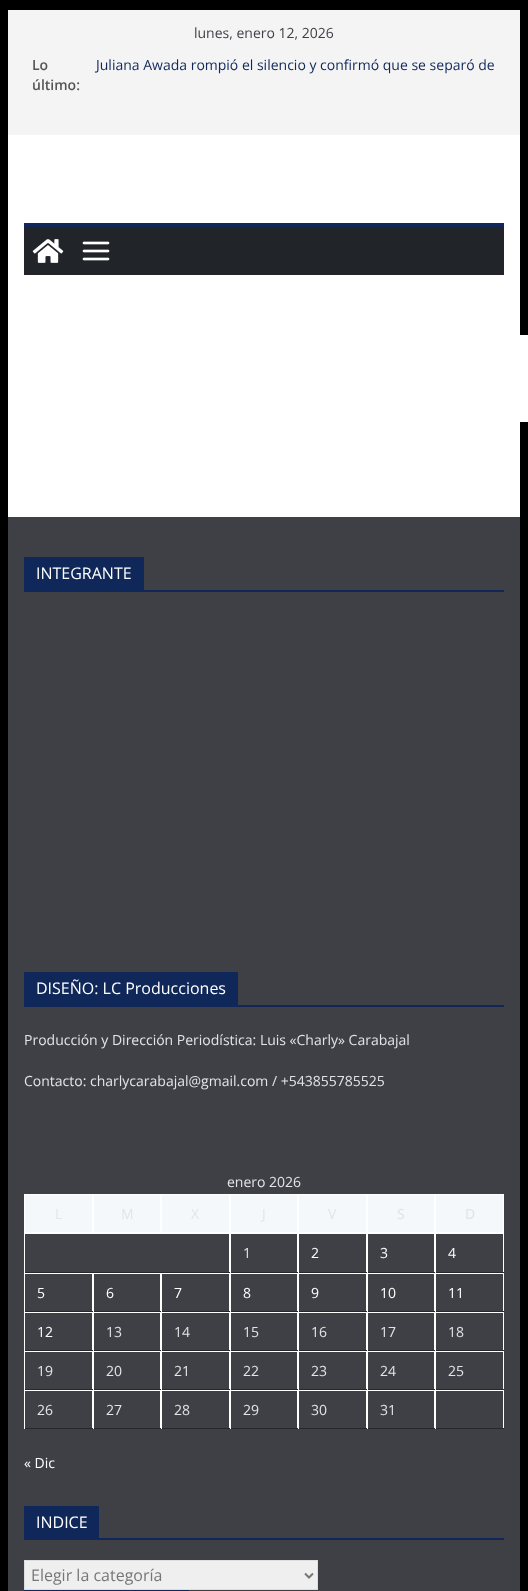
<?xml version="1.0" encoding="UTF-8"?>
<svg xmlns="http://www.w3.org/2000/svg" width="528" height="1591">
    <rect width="100%" height="100%" fill="#000000"/>
    <rect x="8" y="135" width="512" height="382" fill="#FFFFFF"/>
    <rect x="8" y="10" width="512" height="125" fill="#F4F4F5"/>
    <text x="194" y="38" font-family="Open Sans" font-size="14" fill="#3F3F46">lunes, enero 12, 2026</text>
    <text font-family="Open Sans" font-size="14" font-weight="600" fill="#555555">
        <tspan x="32" y="70">Lo</tspan>
        <tspan x="32" y="90">último:</tspan>
    </text>
    <text x="96" y="70" font-family="Open Sans" font-size="14" fill="#102759">Juliana Awada rompió el silencio y confirmó que se separó de</text>
    <rect x="24" y="227" width="480" height="48" fill="#212529"/>
    <rect x="24" y="223" width="480" height="4" fill="#102759"/>
    <image x="32" y="239" width="32" height="24" href="img_01.png"/>
    <image x="82" y="241" width="28" height="20" href="img_02.png"/>
    <rect x="520" y="335" width="8" height="87" fill="#FFFFFF"/>
    <rect x="8" y="517" width="512" height="1074" fill="#3F3F46"/>
    <rect x="24" y="590" width="480" height="2" fill="#102759"/>
    <rect x="24" y="557" width="120" height="33" fill="#102759"/>
    <text x="36" y="579" font-family="'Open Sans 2'" font-size="16" fill="#FFFFFF">INTEGRANTE</text>
    <rect x="24" y="1005" width="480" height="2" fill="#102759"/>
    <rect x="24" y="972" width="214" height="33" fill="#102759"/>
    <text x="36" y="994" font-family="'Open Sans 2'" font-size="16" fill="#FFFFFF">DISEÑO: LC Producciones</text>
    <text x="24" y="1045" font-family="Open Sans" font-size="14" fill="#E4E4E7">Producción y Dirección Periodística: Luis «Charly» Carabajal</text>
    <text x="24" y="1086" font-family="Open Sans" font-size="14" fill="#E4E4E7">Contacto: charlycarabajal@gmail.com / +543855785525</text>
    <text x="227" y="1187" font-family="Open Sans" font-size="14" fill="#E4E4E7">enero 2026</text>
    <rect x="25" y="1195" width="478" height="37" fill="#F4F8FB"/>
    <rect x="24.5" y="1194.5" width="68" height="38" fill="none" stroke="#FFFFFF"/>
    <text x="55" y="1219" font-family="'Open Sans 2'" font-size="14" fill="#E4E4E7">L</text>
    <rect x="93.5" y="1194.5" width="67" height="38" fill="none" stroke="#FFFFFF"/>
    <text x="121" y="1219" font-family="'Open Sans 2'" font-size="14" fill="#E4E4E7">M</text>
    <rect x="161.5" y="1194.5" width="68" height="38" fill="none" stroke="#FFFFFF"/>
    <text x="191" y="1219" font-family="'Open Sans 2'" font-size="14" fill="#E4E4E7">X</text>
    <rect x="230.5" y="1194.5" width="67" height="38" fill="none" stroke="#FFFFFF"/>
    <text x="262" y="1219" font-family="'Open Sans 2'" font-size="14" fill="#E4E4E7">J</text>
    <rect x="298.5" y="1194.5" width="68" height="38" fill="none" stroke="#FFFFFF"/>
    <text x="328" y="1219" font-family="'Open Sans 2'" font-size="14" fill="#E4E4E7">V</text>
    <rect x="367.5" y="1194.5" width="67" height="38" fill="none" stroke="#FFFFFF"/>
    <text x="397" y="1219" font-family="Open Sans" font-size="14" font-weight="500" fill="#E4E4E7">S</text>
    <rect x="435.5" y="1194.5" width="68" height="38" fill="none" stroke="#FFFFFF"/>
    <text x="465" y="1219" font-family="Open Sans" font-size="14" font-weight="500" fill="#E4E4E7">D</text>
    <rect x="24" y="1233" width="480" height="1" fill="#FFFFFF"/>
    <rect x="229" y="1233" width="1" height="40" fill="#FFFFFF"/>
    <rect x="24" y="1272" width="206" height="1" fill="#27272A"/>
    <rect x="24" y="1233" width="1" height="40" fill="#FFFFFF"/>
    <rect x="297" y="1233" width="1" height="40" fill="#FFFFFF"/>
    <rect x="230" y="1272" width="68" height="1" fill="#27272A"/>
    <rect x="230" y="1233" width="1" height="40" fill="#FFFFFF"/>
    <text x="243" y="1258" font-family="Open Sans" font-size="14" fill="#E4E4E7">1</text>
    <rect x="366" y="1233" width="1" height="40" fill="#FFFFFF"/>
    <rect x="298" y="1272" width="69" height="1" fill="#27272A"/>
    <rect x="298" y="1233" width="1" height="40" fill="#FFFFFF"/>
    <text x="311" y="1258" font-family="Open Sans" font-size="14" fill="#FFFFFF">2</text>
    <rect x="434" y="1233" width="1" height="40" fill="#FFFFFF"/>
    <rect x="367" y="1272" width="68" height="1" fill="#27272A"/>
    <rect x="367" y="1233" width="1" height="40" fill="#FFFFFF"/>
    <text x="380" y="1258" font-family="Open Sans" font-size="14" fill="#FFFFFF">3</text>
    <rect x="503" y="1233" width="1" height="40" fill="#FFFFFF"/>
    <rect x="435" y="1272" width="69" height="1" fill="#27272A"/>
    <rect x="435" y="1233" width="1" height="40" fill="#FFFFFF"/>
    <text x="448" y="1258" font-family="Open Sans" font-size="14" fill="#FFFFFF">4</text>
    <rect x="24" y="1273" width="480" height="1" fill="#FFFFFF"/>
    <rect x="92" y="1273" width="1" height="39" fill="#FFFFFF"/>
    <rect x="24" y="1311" width="69" height="1" fill="#27272A"/>
    <rect x="24" y="1273" width="1" height="39" fill="#FFFFFF"/>
    <text x="37" y="1298" font-family="Open Sans" font-size="14" fill="#FFFFFF">5</text>
    <rect x="160" y="1273" width="1" height="39" fill="#FFFFFF"/>
    <rect x="93" y="1311" width="68" height="1" fill="#27272A"/>
    <rect x="93" y="1273" width="1" height="39" fill="#FFFFFF"/>
    <text x="106" y="1298" font-family="Open Sans" font-size="14" fill="#FFFFFF">6</text>
    <rect x="229" y="1273" width="1" height="39" fill="#FFFFFF"/>
    <rect x="161" y="1311" width="69" height="1" fill="#27272A"/>
    <rect x="161" y="1273" width="1" height="39" fill="#FFFFFF"/>
    <text x="174" y="1298" font-family="Open Sans" font-size="14" fill="#FFFFFF">7</text>
    <rect x="297" y="1273" width="1" height="39" fill="#FFFFFF"/>
    <rect x="230" y="1311" width="68" height="1" fill="#27272A"/>
    <rect x="230" y="1273" width="1" height="39" fill="#FFFFFF"/>
    <text x="243" y="1298" font-family="Open Sans" font-size="14" fill="#FFFFFF">8</text>
    <rect x="366" y="1273" width="1" height="39" fill="#FFFFFF"/>
    <rect x="298" y="1311" width="69" height="1" fill="#27272A"/>
    <rect x="298" y="1273" width="1" height="39" fill="#FFFFFF"/>
    <text x="311" y="1298" font-family="Open Sans" font-size="14" fill="#FFFFFF">9</text>
    <rect x="434" y="1273" width="1" height="39" fill="#FFFFFF"/>
    <rect x="367" y="1311" width="68" height="1" fill="#27272A"/>
    <rect x="367" y="1273" width="1" height="39" fill="#FFFFFF"/>
    <text x="380" y="1298" font-family="Open Sans" font-size="14" fill="#FFFFFF">10</text>
    <rect x="503" y="1273" width="1" height="39" fill="#FFFFFF"/>
    <rect x="435" y="1311" width="69" height="1" fill="#27272A"/>
    <rect x="435" y="1273" width="1" height="39" fill="#FFFFFF"/>
    <text x="448" y="1298" font-family="Open Sans" font-size="14" fill="#FFFFFF">11</text>
    <rect x="24" y="1312" width="480" height="1" fill="#FFFFFF"/>
    <rect x="92" y="1312" width="1" height="39" fill="#FFFFFF"/>
    <rect x="24" y="1350" width="69" height="1" fill="#27272A"/>
    <rect x="24" y="1312" width="1" height="39" fill="#FFFFFF"/>
    <text x="37" y="1337" font-family="Open Sans" font-size="14" fill="#FFFFFF">12</text>
    <rect x="160" y="1312" width="1" height="39" fill="#FFFFFF"/>
    <rect x="93" y="1350" width="68" height="1" fill="#27272A"/>
    <rect x="93" y="1312" width="1" height="39" fill="#FFFFFF"/>
    <text x="106" y="1337" font-family="Open Sans" font-size="14" fill="#E4E4E7">13</text>
    <rect x="229" y="1312" width="1" height="39" fill="#FFFFFF"/>
    <rect x="161" y="1350" width="69" height="1" fill="#27272A"/>
    <rect x="161" y="1312" width="1" height="39" fill="#FFFFFF"/>
    <text x="174" y="1337" font-family="Open Sans" font-size="14" fill="#E4E4E7">14</text>
    <rect x="297" y="1312" width="1" height="39" fill="#FFFFFF"/>
    <rect x="230" y="1350" width="68" height="1" fill="#27272A"/>
    <rect x="230" y="1312" width="1" height="39" fill="#FFFFFF"/>
    <text x="243" y="1337" font-family="Open Sans" font-size="14" fill="#E4E4E7">15</text>
    <rect x="366" y="1312" width="1" height="39" fill="#FFFFFF"/>
    <rect x="298" y="1350" width="69" height="1" fill="#27272A"/>
    <rect x="298" y="1312" width="1" height="39" fill="#FFFFFF"/>
    <text x="311" y="1337" font-family="Open Sans" font-size="14" fill="#E4E4E7">16</text>
    <rect x="434" y="1312" width="1" height="39" fill="#FFFFFF"/>
    <rect x="367" y="1350" width="68" height="1" fill="#27272A"/>
    <rect x="367" y="1312" width="1" height="39" fill="#FFFFFF"/>
    <text x="380" y="1337" font-family="Open Sans" font-size="14" fill="#E4E4E7">17</text>
    <rect x="503" y="1312" width="1" height="39" fill="#FFFFFF"/>
    <rect x="435" y="1350" width="69" height="1" fill="#27272A"/>
    <rect x="435" y="1312" width="1" height="39" fill="#FFFFFF"/>
    <text x="448" y="1337" font-family="Open Sans" font-size="14" fill="#E4E4E7">18</text>
    <rect x="24" y="1351" width="480" height="1" fill="#FFFFFF"/>
    <rect x="92" y="1351" width="1" height="39" fill="#FFFFFF"/>
    <rect x="24" y="1389" width="69" height="1" fill="#27272A"/>
    <rect x="24" y="1351" width="1" height="39" fill="#FFFFFF"/>
    <text x="37" y="1376" font-family="Open Sans" font-size="14" fill="#E4E4E7">19</text>
    <rect x="160" y="1351" width="1" height="39" fill="#FFFFFF"/>
    <rect x="93" y="1389" width="68" height="1" fill="#27272A"/>
    <rect x="93" y="1351" width="1" height="39" fill="#FFFFFF"/>
    <text x="106" y="1376" font-family="Open Sans" font-size="14" fill="#E4E4E7">20</text>
    <rect x="229" y="1351" width="1" height="39" fill="#FFFFFF"/>
    <rect x="161" y="1389" width="69" height="1" fill="#27272A"/>
    <rect x="161" y="1351" width="1" height="39" fill="#FFFFFF"/>
    <text x="174" y="1376" font-family="Open Sans" font-size="14" fill="#E4E4E7">21</text>
    <rect x="297" y="1351" width="1" height="39" fill="#FFFFFF"/>
    <rect x="230" y="1389" width="68" height="1" fill="#27272A"/>
    <rect x="230" y="1351" width="1" height="39" fill="#FFFFFF"/>
    <text x="243" y="1376" font-family="Open Sans" font-size="14" fill="#E4E4E7">22</text>
    <rect x="366" y="1351" width="1" height="39" fill="#FFFFFF"/>
    <rect x="298" y="1389" width="69" height="1" fill="#27272A"/>
    <rect x="298" y="1351" width="1" height="39" fill="#FFFFFF"/>
    <text x="311" y="1376" font-family="Open Sans" font-size="14" fill="#E4E4E7">23</text>
    <rect x="434" y="1351" width="1" height="39" fill="#FFFFFF"/>
    <rect x="367" y="1389" width="68" height="1" fill="#27272A"/>
    <rect x="367" y="1351" width="1" height="39" fill="#FFFFFF"/>
    <text x="380" y="1376" font-family="Open Sans" font-size="14" fill="#E4E4E7">24</text>
    <rect x="503" y="1351" width="1" height="39" fill="#FFFFFF"/>
    <rect x="435" y="1389" width="69" height="1" fill="#27272A"/>
    <rect x="435" y="1351" width="1" height="39" fill="#FFFFFF"/>
    <text x="448" y="1376" font-family="Open Sans" font-size="14" fill="#E4E4E7">25</text>
    <rect x="24" y="1390" width="480" height="1" fill="#FFFFFF"/>
    <rect x="92" y="1390" width="1" height="39" fill="#FFFFFF"/>
    <rect x="24" y="1428" width="69" height="1" fill="#27272A"/>
    <rect x="24" y="1390" width="1" height="39" fill="#FFFFFF"/>
    <text x="37" y="1415" font-family="Open Sans" font-size="14" fill="#E4E4E7">26</text>
    <rect x="160" y="1390" width="1" height="39" fill="#FFFFFF"/>
    <rect x="93" y="1428" width="68" height="1" fill="#27272A"/>
    <rect x="93" y="1390" width="1" height="39" fill="#FFFFFF"/>
    <text x="106" y="1415" font-family="Open Sans" font-size="14" fill="#E4E4E7">27</text>
    <rect x="229" y="1390" width="1" height="39" fill="#FFFFFF"/>
    <rect x="161" y="1428" width="69" height="1" fill="#27272A"/>
    <rect x="161" y="1390" width="1" height="39" fill="#FFFFFF"/>
    <text x="174" y="1415" font-family="Open Sans" font-size="14" fill="#E4E4E7">28</text>
    <rect x="297" y="1390" width="1" height="39" fill="#FFFFFF"/>
    <rect x="230" y="1428" width="68" height="1" fill="#27272A"/>
    <rect x="230" y="1390" width="1" height="39" fill="#FFFFFF"/>
    <text x="243" y="1415" font-family="Open Sans" font-size="14" fill="#E4E4E7">29</text>
    <rect x="366" y="1390" width="1" height="39" fill="#FFFFFF"/>
    <rect x="298" y="1428" width="69" height="1" fill="#27272A"/>
    <rect x="298" y="1390" width="1" height="39" fill="#FFFFFF"/>
    <text x="311" y="1415" font-family="Open Sans" font-size="14" fill="#E4E4E7">30</text>
    <rect x="434" y="1390" width="1" height="39" fill="#FFFFFF"/>
    <rect x="367" y="1428" width="68" height="1" fill="#27272A"/>
    <rect x="367" y="1390" width="1" height="39" fill="#FFFFFF"/>
    <text x="380" y="1415" font-family="Open Sans" font-size="14" fill="#E4E4E7">31</text>
    <rect x="503" y="1390" width="1" height="39" fill="#FFFFFF"/>
    <rect x="435" y="1428" width="69" height="1" fill="#27272A"/>
    <rect x="435" y="1390" width="1" height="39" fill="#FFFFFF"/>
    <text x="24" y="1468" font-family="Open Sans" font-size="14" fill="#FFFFFF">« Dic</text>
    <rect x="24" y="1538" width="480" height="2" fill="#102759"/>
    <rect x="24" y="1506" width="75" height="32" fill="#102759"/>
    <text x="36" y="1528" font-family="'Open Sans 2'" font-size="16" fill="#FFFFFF">INDICE</text>
    <rect x="24.5" y="1560.5" width="293" height="29" fill="#EFEFEF" stroke="#DDDDDD"/>
    <path d="M 305 1573.5 L 309 1577.5 L 313 1573.5" fill="none" stroke="#777777" stroke-width="2"/>
    <text x="31" y="1581" font-family="Open Sans" font-size="16" fill="#777777">Elegir la categoría</text>
    <rect x="24" y="1590" width="165" height="1" fill="#102759"/>
</svg>
